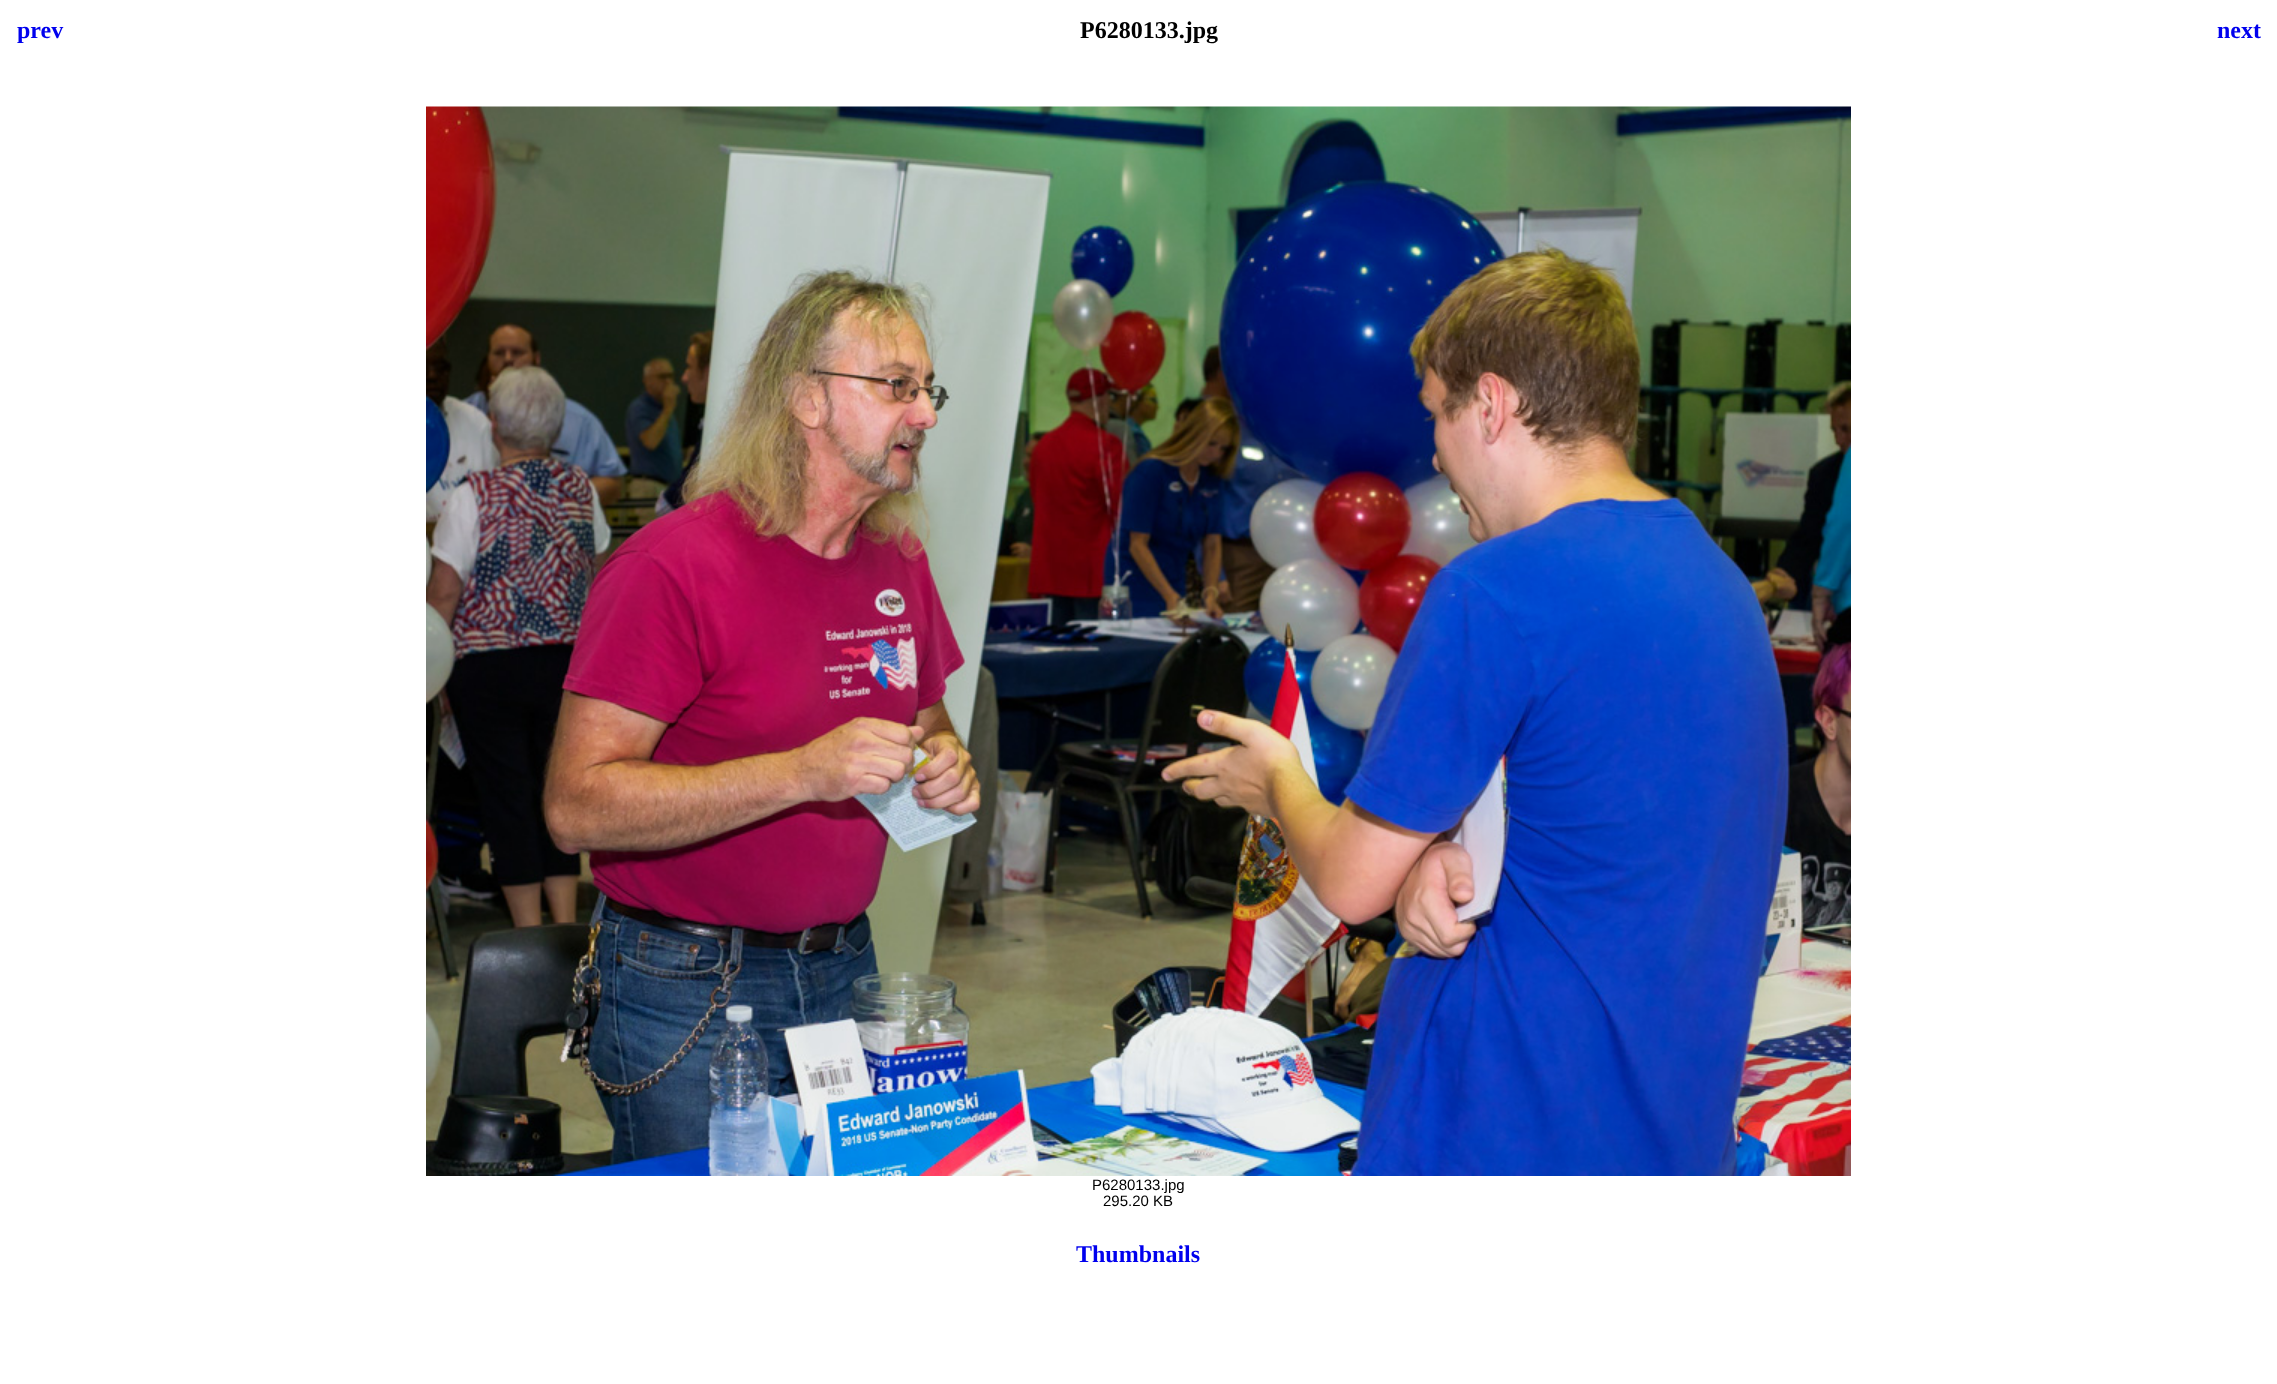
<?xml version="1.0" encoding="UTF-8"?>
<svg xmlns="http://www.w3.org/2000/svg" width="2277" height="1384">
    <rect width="100%" height="100%" fill="#FFFFFF"/>
    <text x="17" y="38" font-family="Liberation Serif" font-size="24" font-weight="700" fill="#0000EE">prev</text>
    <text x="1080" y="38" font-family="Liberation Serif" font-size="24" font-weight="700" fill="#000000">P6280133.jpg</text>
    <text x="2217" y="38" font-family="Liberation Serif" font-size="24" font-weight="700" fill="#0000EE">next</text>
    <image x="426" y="106" width="1425" height="1070" href="img_01.png"/>
    <text x="1092" y="1190" font-family="Liberation Sans" font-size="15" fill="#000000">P6280133.jpg</text>
    <text x="1103" y="1206" font-family="Liberation Sans" font-size="15" fill="#000000">295.20 KB</text>
    <text x="1076" y="1262" font-family="Liberation Serif" font-size="24" font-weight="700" fill="#0000EE">Thumbnails</text>
</svg>
